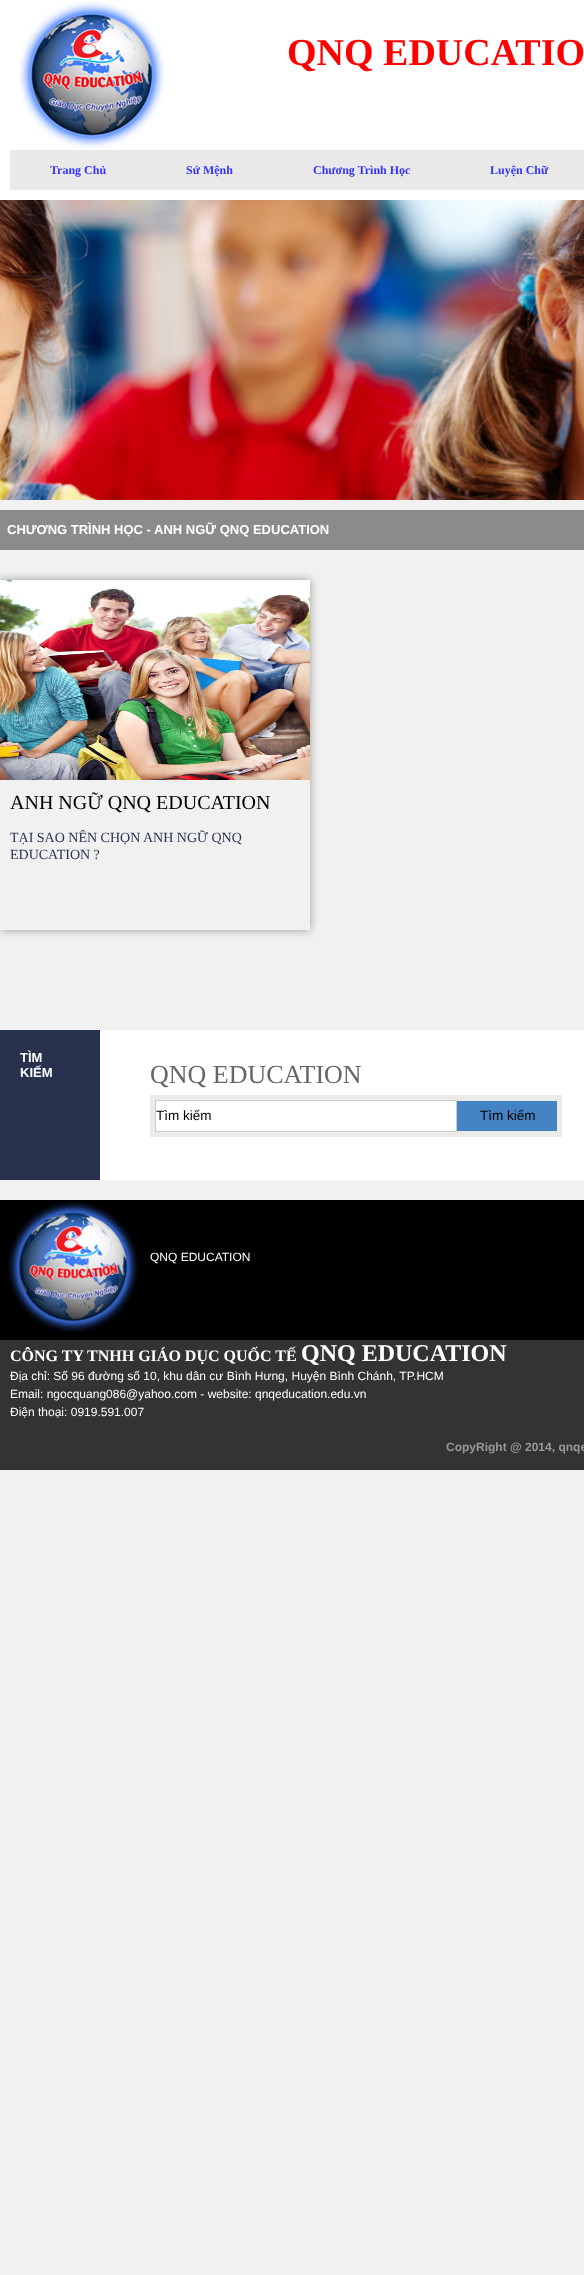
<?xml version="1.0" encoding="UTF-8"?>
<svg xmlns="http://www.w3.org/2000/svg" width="584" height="2275">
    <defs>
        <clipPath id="clip1"><path d="M 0 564 H 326 V 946 H 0 Z M 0 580 H 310 V 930 H 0 Z" clip-rule="evenodd"/></clipPath>
        <filter id="blur1" x="-50%" y="-200%" width="200%" height="500%"><feGaussianBlur stdDeviation="5"/></filter>
    </defs>
    <rect width="100%" height="100%" fill="#F1F1F1"/>
    <rect x="0" y="0" width="584" height="200" fill="#FFFFFF"/>
    <image x="19" y="2" width="146" height="146" href="img_01.png"/>
    <text x="287" y="65" font-family="Liberation Serif" font-size="38" font-weight="700" fill="#FF0000">QNQ EDUCATIO</text>
    <rect x="10" y="150" width="574" height="40" fill="#E9E9E9"/>
    <text x="50" y="174" font-family="Liberation Serif" font-size="12" font-weight="700" fill="#3333FF">Trang Chủ</text>
    <text x="186" y="174" font-family="Liberation Serif" font-size="12" font-weight="700" fill="#3333FF">Sứ Mệnh</text>
    <text x="313" y="174" font-family="Liberation Serif" font-size="12" font-weight="700" fill="#3333FF">Chương Trình Học</text>
    <text x="490" y="174" font-family="Liberation Serif" font-size="12" font-weight="700" fill="#3333FF">Luyện Chữ</text>
    <image x="0" y="200" width="584" height="300" href="img_02.png"/>
    <rect x="0" y="510" width="584" height="40" fill="#8B8B8A"/>
    <text x="7" y="534" font-family="Liberation Sans" font-size="13" font-weight="700" fill="#FFFFFF">CHƯƠNG TRÌNH HỌC - ANH NGỮ QNQ EDUCATION</text>
    <g clip-path="url(#clip1)">
        <rect x="0" y="580" width="310" height="350" fill="#999999" filter="url(#blur1)"/>
    </g>
    <image x="0" y="580" width="310" height="200" href="img_03.png"/>
    <text x="10" y="809" font-family="Liberation Serif" font-size="20" fill="#000000">ANH NGỮ QNQ EDUCATION</text>
    <text font-family="Liberation Serif" font-size="14" fill="#293352">
        <tspan x="10" y="842">TẠI SAO NÊN CHỌN ANH NGỮ QNQ</tspan>
        <tspan x="10" y="859">EDUCATION ?</tspan>
    </text>
    <rect x="100" y="1030" width="484" height="150" fill="#FFFFFF"/>
    <rect x="0" y="1030" width="100" height="150" fill="#28314E"/>
    <text font-family="Liberation Sans" font-size="13" font-weight="700" fill="#FFFFFF">
        <tspan x="20" y="1062">TÌM</tspan>
        <tspan x="20" y="1077">KIẾM</tspan>
    </text>
    <text x="150" y="1083" font-family="Liberation Serif" font-size="26" fill="#666666">QNQ EDUCATION</text>
    <rect x="150" y="1095" width="412" height="42" fill="#EBEBE9"/>
    <rect x="155.5" y="1100.5" width="301" height="31" fill="none" stroke="#CCCCCC"/>
    <rect x="156" y="1101" width="300" height="30" fill="#FFFFFF"/>
    <text x="156" y="1120" font-family="Liberation Sans" font-size="13.5" fill="#000000">Tìm kiếm</text>
    <rect x="457" y="1101" width="100" height="30" fill="#4483C3"/>
    <text x="480" y="1120" font-family="Liberation Sans" font-size="13.5" fill="#000000">Tìm kiếm</text>
    <rect x="0" y="1200" width="584" height="140" fill="#000000"/>
    <image x="8" y="1202" width="130" height="130" href="img_04.png"/>
    <text x="150" y="1261" font-family="Liberation Sans" font-size="12" fill="#FFFFFF">QNQ EDUCATION</text>
    <rect x="0" y="1340" width="584" height="130" fill="#333333"/>
    <text x="10" y="1361" font-family="Liberation Serif" font-size="16" font-weight="700" fill="#FFFFFF">CÔNG TY TNHH GIÁO DỤC QUỐC TẾ</text>
    <text x="301" y="1361" font-family="Liberation Serif" font-size="24" font-weight="700" fill="#FFFFFF">QNQ EDUCATION</text>
    <text font-family="Liberation Sans" font-size="12" fill="#FFFFFF">
        <tspan x="10" y="1380">Địa chỉ: Số 96 đường số 10, khu dân cư Bình Hưng, Huyện Bình Chánh, TP.HCM</tspan>
        <tspan x="10" y="1398">Email: ngocquang086@yahoo.com - website: qnqeducation.edu.vn</tspan>
        <tspan x="10" y="1416">Điện thoại: 0919.591.007</tspan>
    </text>
    <text x="446" y="1451" font-family="Liberation Sans" font-size="12" font-weight="700" fill="#999999">CopyRight @ 2014, qnqe</text>
</svg>
